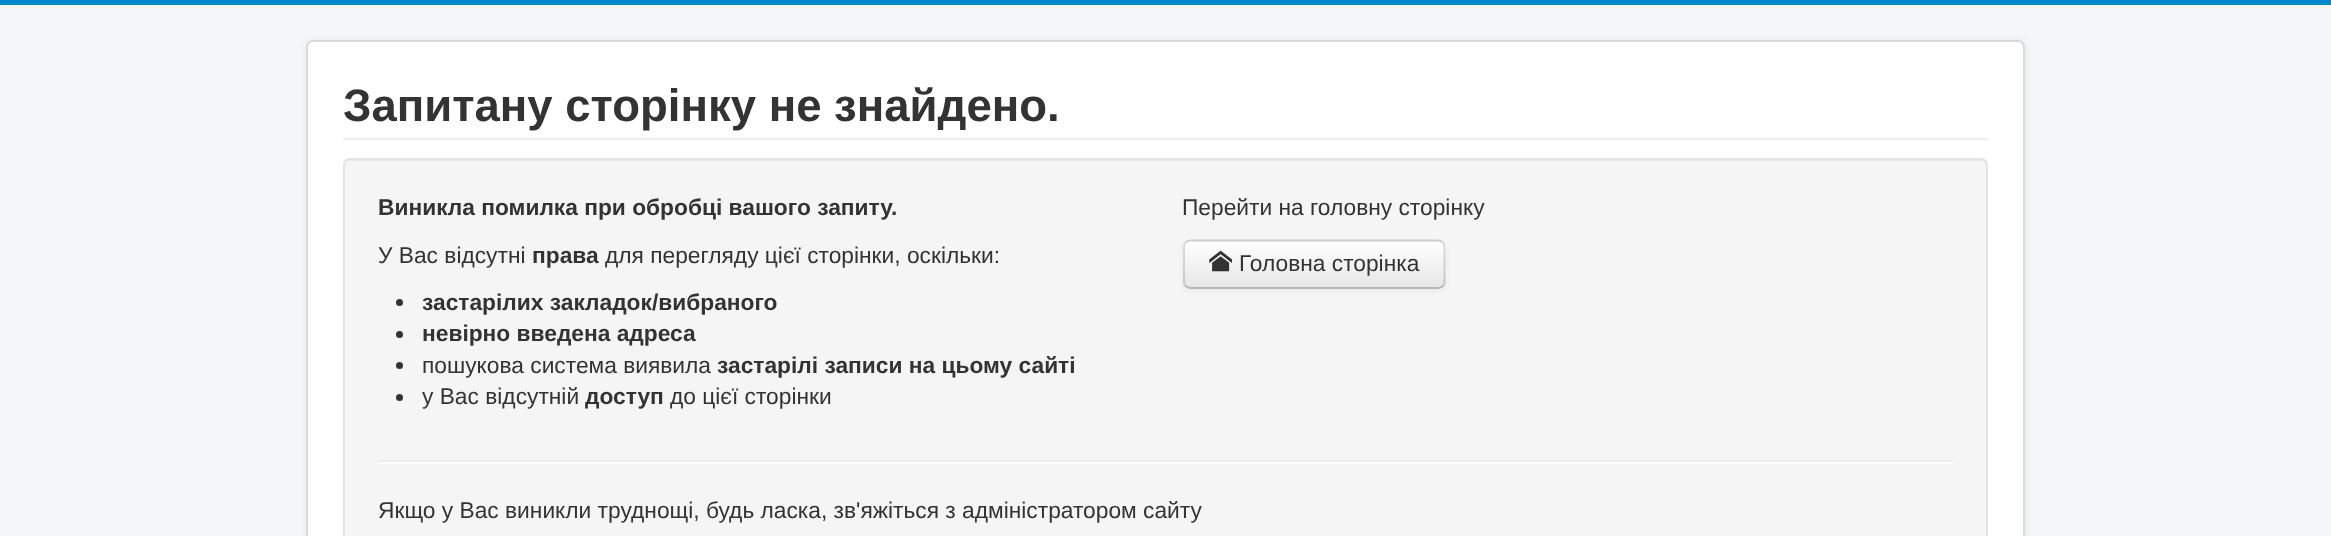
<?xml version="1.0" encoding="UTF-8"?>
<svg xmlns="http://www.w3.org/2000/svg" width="2331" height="536">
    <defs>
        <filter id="blur1" x="-50%" y="-200%" width="200%" height="500%"><feGaussianBlur stdDeviation="5"/></filter>
        <filter id="blur2" x="-50%" y="-200%" width="200%" height="500%"><feGaussianBlur stdDeviation="2"/></filter>
        <clipPath id="clip1"><rect x="1183" y="240" width="263" height="49" rx="7"/></clipPath>
        <linearGradient id="g1" gradientUnits="userSpaceOnUse" x1="1314" y1="242" x2="1314" y2="287"><stop offset="0" stop-color="#FFFFFF"/><stop offset="1" stop-color="#E6E6E6"/></linearGradient>
    </defs>
    <rect width="100%" height="100%" fill="#F4F6F7"/>
    <rect x="0" y="0" width="2331" height="5" fill="#0088CC"/>
    <rect x="306" y="40" width="1719" height="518" rx="7" fill="#000000" fill-opacity="0.05" filter="url(#blur1)"/>
    <rect x="306" y="40" width="1719" height="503" rx="7" fill="#FFFFFF"/>
    <rect x="307" y="41" width="1717" height="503" rx="6" fill="none" stroke="#000000" stroke-opacity="0.15" stroke-width="2"/>
    <rect x="343" y="138" width="1645" height="2" fill="#EEEEEE"/>
    <text x="343" y="121" font-family="Liberation Sans" font-size="45.5" font-weight="700" fill="#333333">Запитану сторінку не знайдено.</text>
    <rect x="343" y="158" width="1645" height="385" rx="7" fill="#F5F5F5"/>
    <path d="M 350 161 H 1981 C 1984 161 1986 163 1986 166 C 1986 163 1985 159 1981 159 H 350 C 346 159 345 163 345 166 C 345 163 347 161 350 161 Z" fill="#E9E9E9"/>
    <rect x="344" y="159" width="1643" height="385" rx="6" fill="none" stroke="#E3E3E3" stroke-width="2"/>
    <text x="378" y="215" font-family="Liberation Sans" font-size="22.75" font-weight="700" fill="#333333">Виникла помилка при обробці вашого запиту.</text>
    <text x="378" y="263" font-family="Liberation Sans" font-size="22.75" fill="#333333">У Вас відсутні</text>
    <text x="532" y="263" font-family="Liberation Sans" font-size="22.75" font-weight="700" fill="#333333">права</text>
    <text x="605" y="263" font-family="Liberation Sans" font-size="22.75" fill="#333333">для перегляду цієї сторінки, оскільки:</text>
    <circle cx="399.5" cy="302.5" r="3.5" fill="#333333"/>
    <text x="422" y="310" font-family="Liberation Sans" font-size="22.75" font-weight="700" fill="#333333">застарілих закладок/вибраного</text>
    <circle cx="399.5" cy="334.5" r="3.5" fill="#333333"/>
    <text x="422" y="341" font-family="Liberation Sans" font-size="22.75" font-weight="700" fill="#333333">невірно введена адреса</text>
    <circle cx="399.5" cy="365.5" r="3.5" fill="#333333"/>
    <text x="422" y="373" font-family="Liberation Sans" font-size="22.75" fill="#333333">пошукова система виявила</text>
    <text x="717" y="373" font-family="Liberation Sans" font-size="22.75" font-weight="700" fill="#333333">застарілі записи на цьому сайті</text>
    <circle cx="399.5" cy="397.5" r="3.5" fill="#333333"/>
    <text x="422" y="404" font-family="Liberation Sans" font-size="22.75" fill="#333333">у Вас відсутній</text>
    <text x="585" y="404" font-family="Liberation Sans" font-size="22.75" font-weight="700" fill="#333333">доступ</text>
    <text x="670" y="404" font-family="Liberation Sans" font-size="22.75" fill="#333333">до цієї сторінки</text>
    <text x="1182" y="215" font-family="Liberation Sans" font-size="22.75" fill="#333333">Перейти на головну сторінку</text>
    <rect x="1183" y="242" width="263" height="49" rx="7" fill="#000000" fill-opacity="0.05" filter="url(#blur2)"/>
    <rect x="1183" y="240" width="263" height="49" rx="7" fill="#F5F5F5"/>
    <g clip-path="url(#clip1)">
        <rect x="1183" y="242" width="263" height="45" fill="url(#g1)"/>
    </g>
    <path d="M 1443 286 C 1441.5 287 1440 288 1438.5 288 H 1190 C 1188.5 288 1187 287 1185.5 286" fill="none" stroke="#000000" stroke-opacity="0.25" stroke-width="1.8"/>
    <path d="M 1185.5 286 C 1184.5 285 1184 283.5 1184 282 V 247 C 1184 245 1184.5 243.5 1185.5 242.5 C 1187 241.5 1188.5 240.5 1190 240.5 H 1438.5 C 1440 240.5 1441.5 241.5 1443 242.5 C 1444 243.5 1444.5 245 1444.5 247 V 282 C 1444.5 283.5 1444 285 1443 286" fill="none" stroke="#000000" stroke-opacity="0.15" stroke-width="1.8"/>
    <image x="1209" y="250" width="23" height="22" href="img_01.png"/>
    <text x="1239" y="271" font-family="Liberation Sans" font-size="22.75" fill="#333333">Головна сторінка</text>
    <rect x="378" y="460" width="1575" height="2" fill="#EEEEEE"/>
    <rect x="378" y="462" width="1575" height="2" fill="#FFFFFF"/>
    <text x="378" y="518" font-family="Liberation Sans" font-size="22.75" fill="#333333">Якщо у Вас виникли труднощі, будь ласка, зв'яжіться з адміністратором сайту</text>
</svg>
